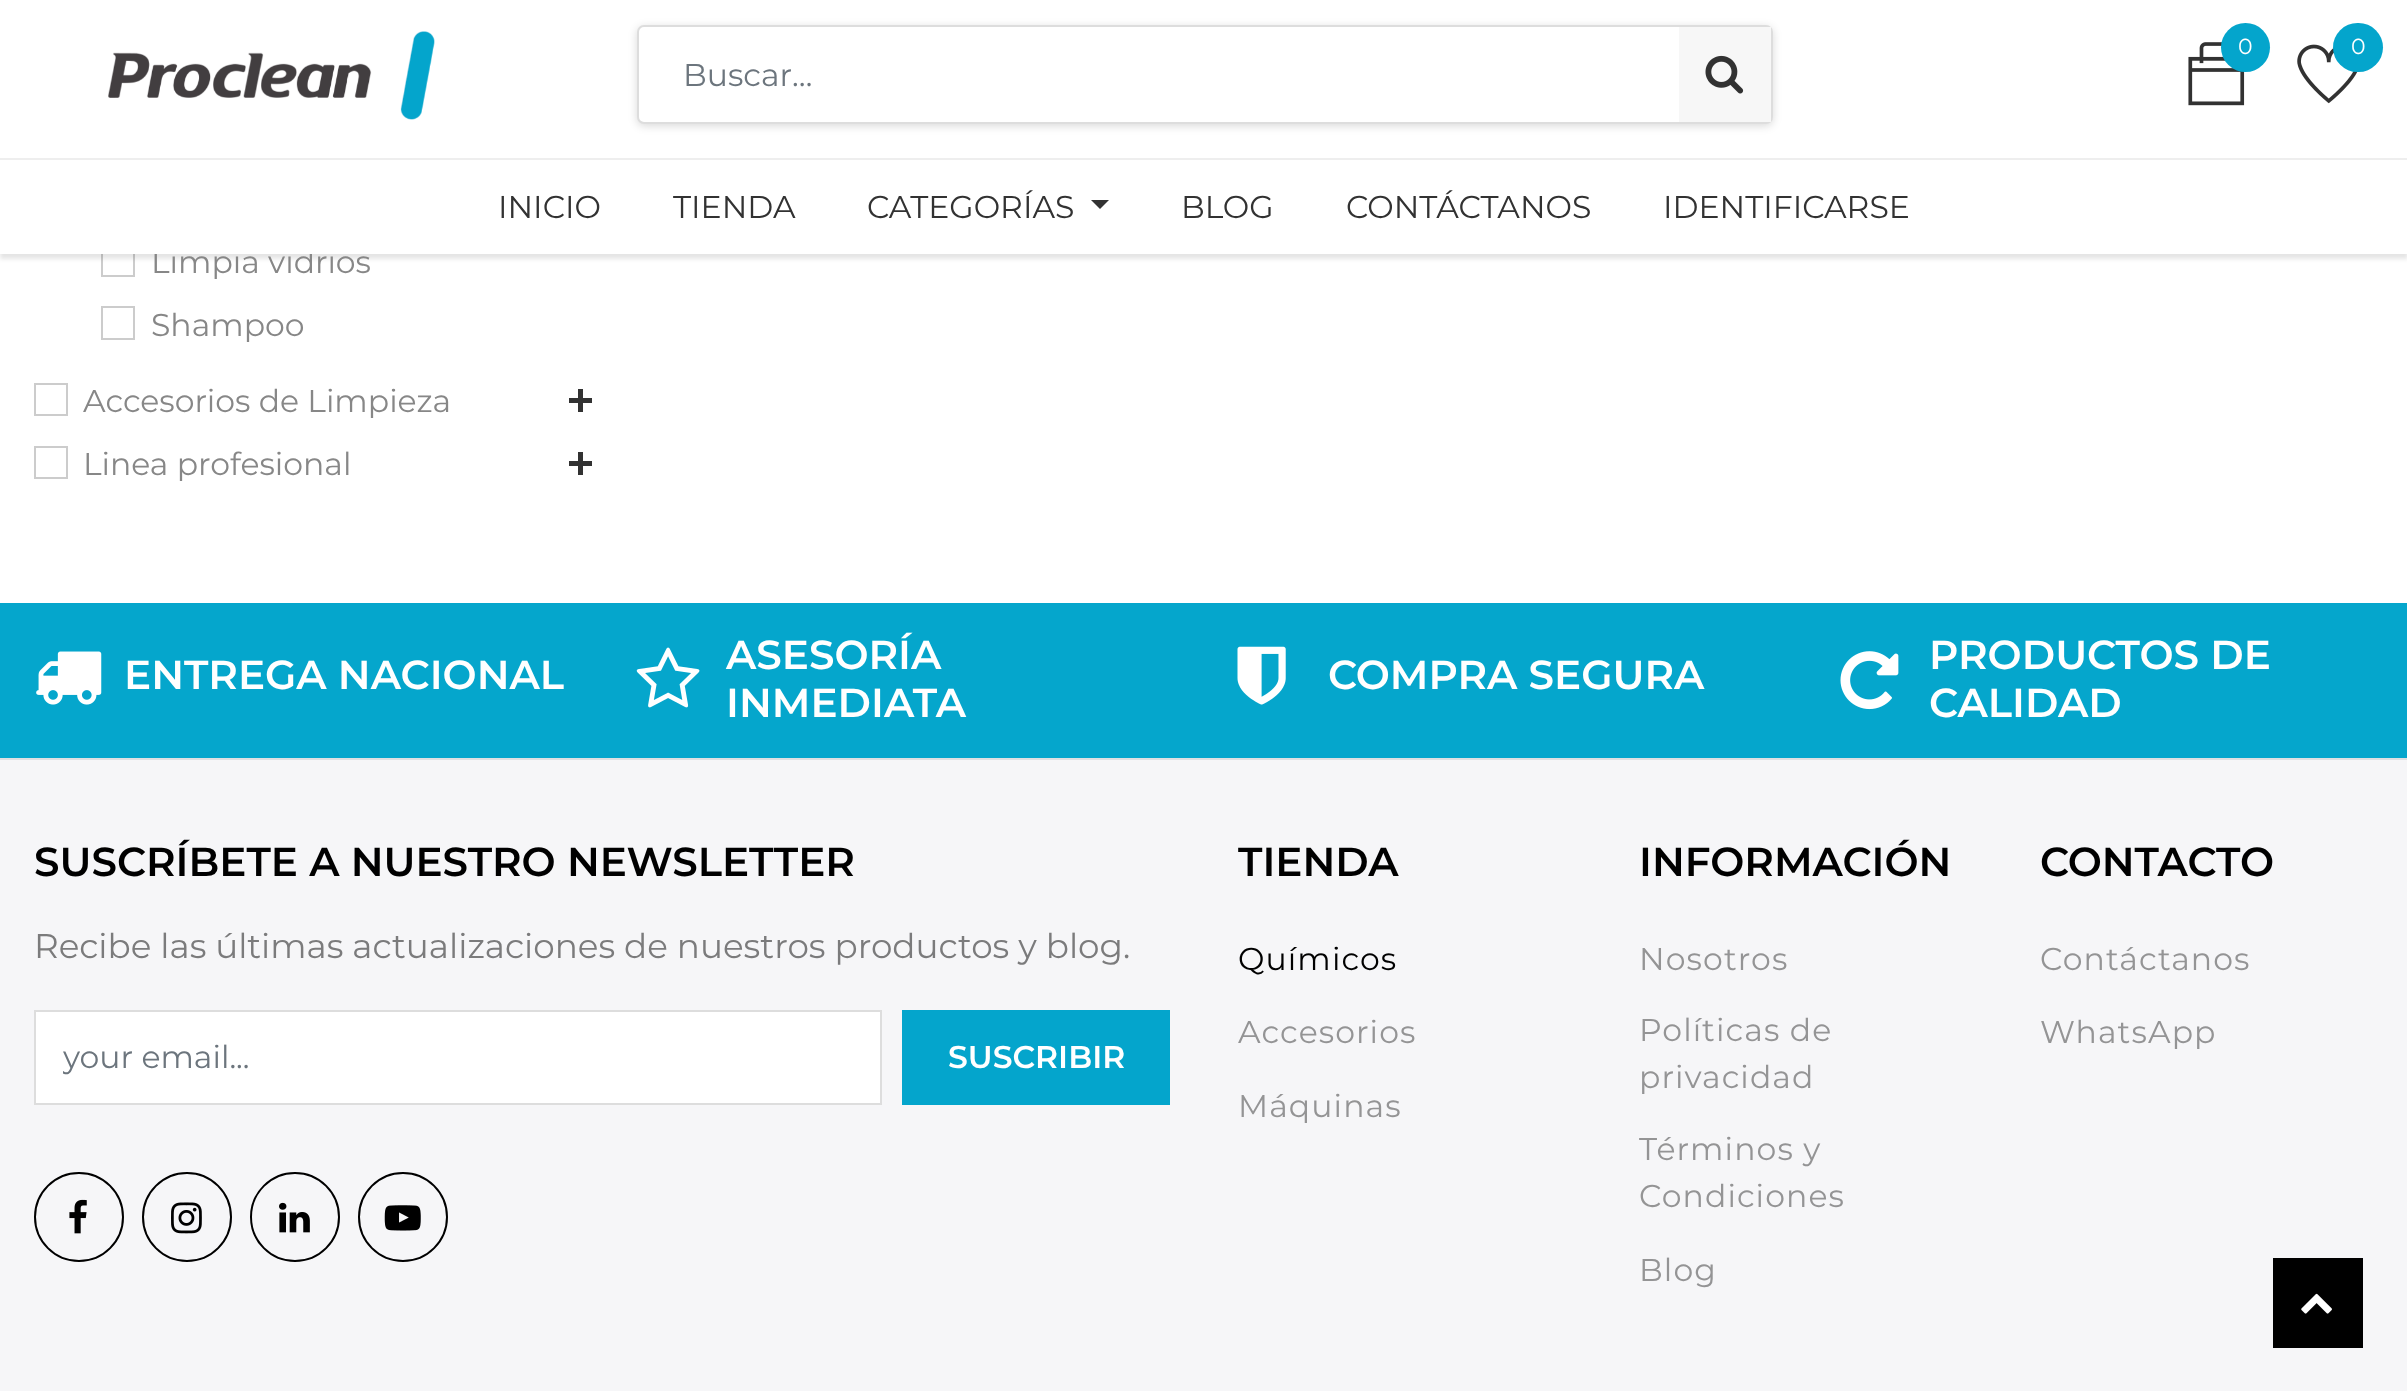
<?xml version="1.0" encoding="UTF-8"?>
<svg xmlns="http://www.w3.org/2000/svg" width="2407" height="1391">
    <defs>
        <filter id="blur1" x="-50%" y="-200%" width="200%" height="500%"><feGaussianBlur stdDeviation="2"/></filter>
        <filter id="blur2" x="-50%" y="-200%" width="200%" height="500%"><feGaussianBlur stdDeviation="4.5"/></filter>
        <clipPath id="clip1"><rect x="63" y="1037" width="790" height="41"/></clipPath>
    </defs>
    <rect width="100%" height="100%" fill="#FFFFFF"/>
    <rect x="102" y="244" width="32" height="32" fill="none" stroke="#CCCCCC" stroke-width="2"/>
    <rect x="0" y="-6" width="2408" height="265" fill="#000000" fill-opacity="0.1" filter="url(#blur1)"/>
    <text x="151" y="273" font-family="Montserrat" font-size="31.5" fill="#878787">Limpia vidrios</text>
    <rect x="0" y="0" width="2407" height="254" fill="#FFFFFF"/>
    <image x="108" y="31" width="327" height="89" href="img_01.png"/>
    <image x="2188" y="42" width="57" height="64" href="img_02.png"/>
    <circle cx="2245.5" cy="47.5" r="24.5" fill="#04A5CC"/>
    <text x="2238" y="54" font-family="Montserrat" font-size="22" fill="#FFFFFF">0</text>
    <image x="2297" y="44" width="61" height="60" href="img_03.png"/>
    <rect x="2333" y="23" width="50" height="49" rx="24.5" fill="#04A5CC"/>
    <text x="2351" y="54" font-family="Montserrat" font-size="22" fill="#FFFFFF">0</text>
    <rect x="637" y="27" width="1136" height="99" rx="7" fill="#000000" fill-opacity="0.15" filter="url(#blur2)"/>
    <rect x="638" y="26" width="1134" height="97" rx="6" fill="#FFFFFF" stroke="#DDDDDD" stroke-width="2"/>
    <text x="683" y="86" font-family="Montserrat" font-size="31.5" fill="#6C757D">Buscar…</text>
    <rect x="1679" y="27" width="92" height="95" fill="#F7F7F7"/>
    <image x="1705" y="55" width="39" height="39" href="img_04.png"/>
    <rect x="0" y="158" width="2407" height="2" fill="#EEEEEE"/>
    <text x="498" y="218" font-family="Montserrat" font-size="31.5" fill="#323232">INICIO</text>
    <text x="673" y="218" font-family="Montserrat" font-size="31.5" fill="#323232">TIENDA</text>
    <text x="867" y="218" font-family="Montserrat" font-size="31.5" fill="#323232">CATEGORÍAS</text>
    <path d="M 1091 200 H 1109 L 1100 209 Z" fill="#323232"/>
    <text x="1181" y="218" font-family="Montserrat" font-size="31.5" fill="#323232">BLOG</text>
    <text x="1346" y="218" font-family="Montserrat" font-size="31.5" fill="#323232">CONTÁCTANOS</text>
    <text x="1663" y="218" font-family="Montserrat" font-size="31.5" fill="#323232">IDENTIFICARSE</text>
    <rect x="102" y="307" width="32" height="32" fill="none" stroke="#CCCCCC" stroke-width="2"/>
    <text x="151" y="336" font-family="Montserrat" font-size="31.5" fill="#878787">Shampoo</text>
    <rect x="35" y="384" width="32" height="31" fill="none" stroke="#CCCCCC" stroke-width="2"/>
    <text x="83" y="412" font-family="Montserrat" font-size="31.5" fill="#878787">Accesorios de Limpieza</text>
    <rect x="569" y="398" width="23" height="5" fill="#323232"/>
    <rect x="578" y="389" width="5" height="23" fill="#323232"/>
    <rect x="35" y="447" width="32" height="31" fill="none" stroke="#CCCCCC" stroke-width="2"/>
    <text x="83" y="475" font-family="Montserrat" font-size="31.5" fill="#878787">Linea profesional</text>
    <rect x="569" y="461" width="23" height="5" fill="#323232"/>
    <rect x="578" y="452" width="5" height="23" fill="#323232"/>
    <rect x="0" y="603" width="2407" height="155" fill="#05A6CC"/>
    <image x="36" y="651" width="66" height="54" href="img_05.png"/>
    <text x="124" y="689" font-family="Montserrat" font-size="40.5" font-weight="600" fill="#FFFFFF">ENTREGA NACIONAL</text>
    <image x="636" y="647" width="64" height="61" href="img_06.png"/>
    <text font-family="Montserrat" font-size="40.5" font-weight="600" fill="#FFFFFF">
        <tspan x="726" y="669">ASESORÍA</tspan>
        <tspan x="726" y="717">INMEDIATA</tspan>
    </text>
    <image x="1237" y="646" width="49" height="59" href="img_07.png"/>
    <text x="1328" y="689" font-family="Montserrat" font-size="40.5" font-weight="600" fill="#FFFFFF">COMPRA SEGURA</text>
    <image x="1840" y="651" width="59" height="59" href="img_08.png"/>
    <text font-family="Montserrat" font-size="40.5" font-weight="600" fill="#FFFFFF">
        <tspan x="1929" y="669">PRODUCTOS DE</tspan>
        <tspan x="1929" y="717">CALIDAD</tspan>
    </text>
    <rect x="0" y="760" width="2407" height="631" fill="#F6F6F8"/>
    <rect x="0" y="758" width="2407" height="2" fill="#E0E0E2"/>
    <text x="34" y="876" font-family="Montserrat" font-size="40.5" font-weight="600" fill="#000000">SUSCRÍBETE A NUESTRO NEWSLETTER</text>
    <text x="34" y="958" font-family="Montserrat" font-size="34.2" fill="#7B7B7C">Recibe las últimas actualizaciones de nuestros productos y blog.</text>
    <rect x="35" y="1011" width="846" height="93" fill="#FFFFFF" stroke="#DDDDDD" stroke-width="2"/>
    <g clip-path="url(#clip1)">
        <text x="63" y="1068" font-family="Montserrat" font-size="31.5" fill="#6C757D">your email...</text>
    </g>
    <rect x="902" y="1010" width="268" height="95" fill="#04A5CC"/>
    <text x="948" y="1068" font-family="Montserrat" font-size="31.5" font-weight="600" fill="#FFFFFF">SUSCRIBIR</text>
    <circle cx="79" cy="1217" r="44" fill="none" stroke="#000000" stroke-width="2"/>
    <image x="69" y="1199" width="18" height="35" href="img_09.png"/>
    <circle cx="187" cy="1217" r="44" fill="none" stroke="#000000" stroke-width="2"/>
    <image x="171" y="1202" width="31" height="32" href="img_10.png"/>
    <circle cx="295" cy="1217" r="44" fill="none" stroke="#000000" stroke-width="2"/>
    <image x="279" y="1202" width="31" height="31" href="img_11.png"/>
    <circle cx="403" cy="1217" r="44" fill="none" stroke="#000000" stroke-width="2"/>
    <image x="384" y="1205" width="37" height="26" href="img_12.png"/>
    <text x="1238" y="876" font-family="Montserrat" font-size="40.5" font-weight="600" fill="#000000">TIENDA</text>
    <text x="1238" y="970" font-family="Montserrat" font-size="31.5" letter-spacing="1.1" fill="#000000">Químicos</text>
    <text x="1238" y="1043" font-family="Montserrat" font-size="31.5" letter-spacing="1.1" fill="#949495">Accesorios</text>
    <text x="1238" y="1117" font-family="Montserrat" font-size="31.5" letter-spacing="1.1" fill="#949495">Máquinas</text>
    <text x="1639" y="876" font-family="Montserrat" font-size="40.5" font-weight="600" fill="#000000">INFORMACIÓN</text>
    <text x="1639" y="970" font-family="Montserrat" font-size="31.5" letter-spacing="1.1" fill="#949495">Nosotros</text>
    <text font-family="Montserrat" font-size="31.5" letter-spacing="1.1" fill="#949495">
        <tspan x="1639" y="1041">Políticas de</tspan>
        <tspan x="1639" y="1088">privacidad</tspan>
    </text>
    <text font-family="Montserrat" font-size="31.5" letter-spacing="1.1" fill="#949495">
        <tspan x="1639" y="1160">Términos y</tspan>
        <tspan x="1639" y="1207">Condiciones</tspan>
    </text>
    <text x="1639" y="1281" font-family="Montserrat" font-size="31.5" letter-spacing="1.1" fill="#949495">Blog</text>
    <text x="2040" y="876" font-family="Montserrat" font-size="40.5" font-weight="600" fill="#000000">CONTACTO</text>
    <text x="2040" y="970" font-family="Montserrat" font-size="31.5" letter-spacing="1.1" fill="#949495">Contáctanos</text>
    <text x="2040" y="1043" font-family="Montserrat" font-size="31.5" letter-spacing="1.1" fill="#949495">WhatsApp</text>
    <rect x="2273" y="1258" width="90" height="90" fill="#000000"/>
    <image x="2301" y="1293" width="31" height="21" href="img_13.png"/>
</svg>
